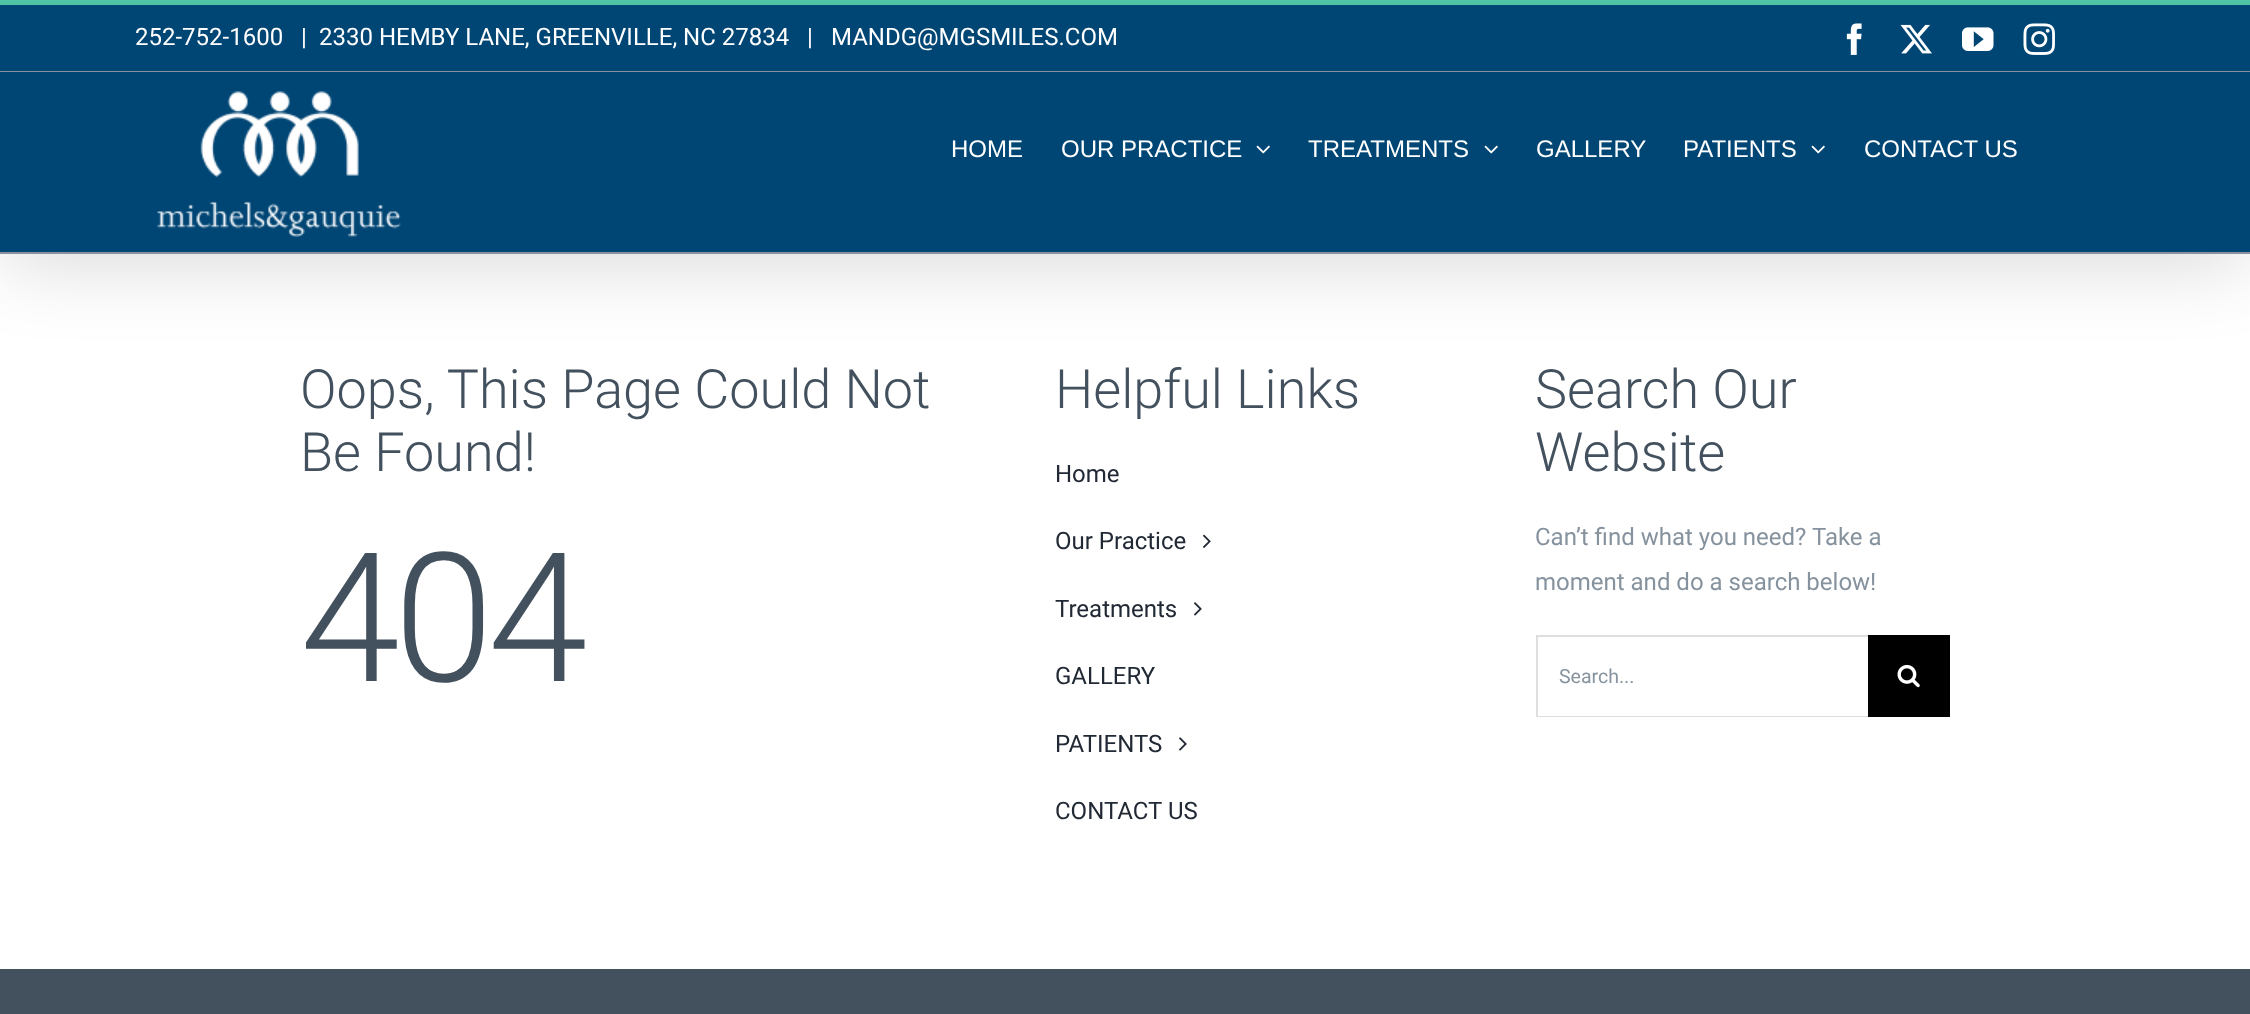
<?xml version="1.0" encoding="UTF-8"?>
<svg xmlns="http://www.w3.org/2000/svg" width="2250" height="1014">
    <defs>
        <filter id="blur1" x="-50%" y="-200%" width="200%" height="500%"><feGaussianBlur stdDeviation="37.5"/></filter>
    </defs>
    <rect width="100%" height="100%" fill="#FFFFFF"/>
    <rect x="3" y="18" width="2244" height="248" fill="#000000" fill-opacity="0.14" filter="url(#blur1)"/>
    <rect x="0" y="5" width="2250" height="66" fill="#004675"/>
    <rect x="0" y="0" width="2250" height="5" fill="#4FC3A3"/>
    <rect x="0" y="71" width="2250" height="1" fill="#86939E"/>
    <text x="135" y="45" font-family="Roboto" font-size="24" fill="#FFFFFF">252-752-1600</text>
    <text x="301" y="45" font-family="Roboto" font-size="24" fill="#FFFFFF">|</text>
    <text x="319" y="45" font-family="Roboto" font-size="24" fill="#FFFFFF">2330 HEMBY LANE, GREENVILLE, NC 27834</text>
    <text x="807" y="45" font-family="Roboto" font-size="24" fill="#FFFFFF">|</text>
    <text x="831" y="45" font-family="Roboto" font-size="24" fill="#FFFFFF">MANDG@MGSMILES.COM</text>
    <image x="1846" y="23" width="16" height="32" href="img_01.png"/>
    <image x="1900" y="24" width="32" height="30" href="img_02.png"/>
    <image x="1962" y="27" width="32" height="24" href="img_03.png"/>
    <image x="2023" y="23" width="32" height="32" href="img_04.png"/>
    <rect x="0" y="72" width="2250" height="180" fill="#004675"/>
    <rect x="0" y="252" width="2250" height="2" fill="#86939E"/>
    <image x="157" y="91" width="244" height="146" href="img_05.png"/>
    <text x="951" y="157" font-family="Liberation Sans" font-size="24" fill="#FFFFFF">HOME</text>
    <text x="1061" y="157" font-family="Liberation Sans" font-size="24" fill="#FFFFFF">OUR PRACTICE</text>
    <image x="1256" y="145" width="14" height="9" href="img_06.png"/>
    <text x="1308" y="157" font-family="Liberation Sans" font-size="24" fill="#FFFFFF">TREATMENTS</text>
    <image x="1484" y="145" width="14" height="9" href="img_06.png"/>
    <text x="1536" y="157" font-family="Liberation Sans" font-size="24" fill="#FFFFFF">GALLERY</text>
    <text x="1683" y="157" font-family="Liberation Sans" font-size="24" fill="#FFFFFF">PATIENTS</text>
    <image x="1811" y="145" width="14" height="9" href="img_06.png"/>
    <text x="1864" y="157" font-family="Liberation Sans" font-size="24" fill="#FFFFFF">CONTACT US</text>
    <text font-family="Roboto" font-size="54" font-weight="300" fill="#43515E">
        <tspan x="300" y="408">Oops, This Page Could Not</tspan>
        <tspan x="300" y="471">Be Found!</tspan>
    </text>
    <text x="300" y="681" font-family="Roboto" font-size="180" font-weight="300" letter-spacing="-6" fill="#43515E">404</text>
    <text x="1055" y="408" font-family="Roboto" font-size="54" font-weight="300" fill="#43515E">Helpful Links</text>
    <text x="1055" y="482" font-family="Roboto" font-size="24" fill="#212934">Home</text>
    <text x="1055" y="549" font-family="Roboto" font-size="24" fill="#212934">Our Practice</text>
    <image x="1203" y="534" width="8" height="14" href="img_07.png"/>
    <text x="1055" y="617" font-family="Roboto" font-size="24" fill="#212934">Treatments</text>
    <image x="1194" y="602" width="8" height="14" href="img_08.png"/>
    <text x="1055" y="684" font-family="Roboto" font-size="24" fill="#212934">GALLERY</text>
    <text x="1055" y="752" font-family="Roboto" font-size="24" fill="#212934">PATIENTS</text>
    <image x="1179" y="737" width="8" height="14" href="img_09.png"/>
    <text x="1055" y="819" font-family="Roboto" font-size="24" fill="#212934">CONTACT US</text>
    <text font-family="Roboto" font-size="54" font-weight="300" fill="#43515E">
        <tspan x="1535" y="408">Search Our</tspan>
        <tspan x="1535" y="471">Website</tspan>
    </text>
    <text font-family="Roboto" font-size="24" fill="#86939E">
        <tspan x="1535" y="545">Can’t find what you need? Take a</tspan>
        <tspan x="1535" y="590">moment and do a search below!</tspan>
    </text>
    <rect x="1536" y="635" width="332" height="2" fill="#DEDEDE"/>
    <rect x="1536" y="716" width="332" height="1" fill="#DEDEDE"/>
    <rect x="1536" y="635" width="2" height="82" fill="#DEDEDE"/>
    <text x="1559" y="683" font-family="Roboto" font-size="19.5" fill="#86939E">Search...</text>
    <rect x="1868" y="635" width="82" height="82" fill="#000000"/>
    <image x="1897" y="664" width="23" height="24" href="img_10.png"/>
    <rect x="0" y="969" width="2250" height="45" fill="#43515E"/>
</svg>
